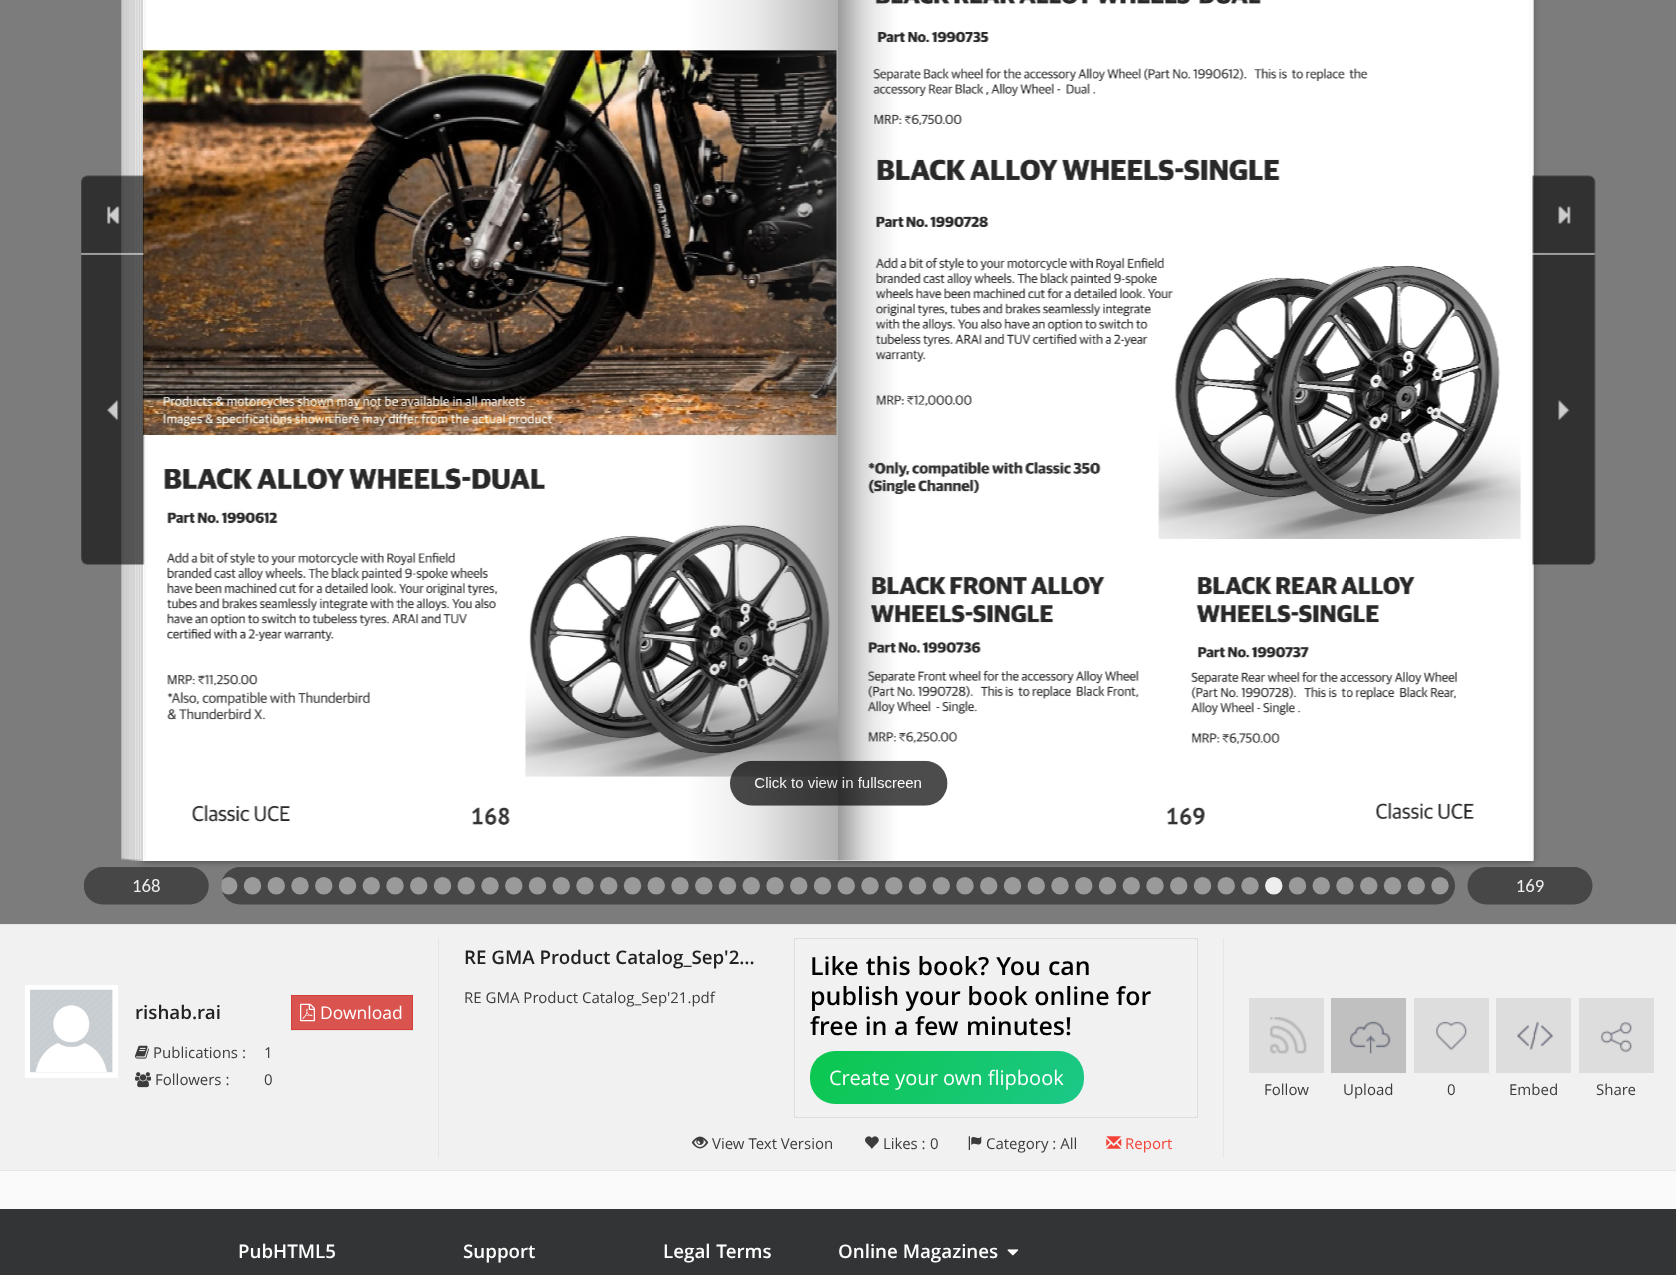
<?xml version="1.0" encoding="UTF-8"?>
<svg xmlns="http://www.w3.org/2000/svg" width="1676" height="1275">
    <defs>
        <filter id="blur1" x="-50%" y="-200%" width="200%" height="500%"><feGaussianBlur stdDeviation="0.5"/></filter>
        <linearGradient id="g1" gradientUnits="userSpaceOnUse" x1="843" y1="1005" x2="1051" y2="1150"><stop offset="0" stop-color="#0BC74E"/><stop offset="1" stop-color="#1CC888"/></linearGradient>
    </defs>
    <rect width="100%" height="100%" fill="#7C7C7C"/>
    <image x="81" y="0" width="1515" height="905" href="img_01.png"/>
    <rect x="0" y="1171" width="1676" height="38" fill="#FAFAFA"/>
    <rect x="0" y="925" width="1676" height="245" fill="#F1F1F1"/>
    <rect x="0" y="924" width="1676" height="1" fill="#E6E6E6"/>
    <rect x="0" y="1170" width="1676" height="1" fill="#E6E6E6"/>
    <rect x="25" y="985" width="93" height="93" fill="#5CB85C" filter="url(#blur1)"/>
    <rect x="27.5" y="987.5" width="88" height="88" fill="#F5F5F5" stroke="#FFFFFF" stroke-width="5"/>
    <image x="30" y="989" width="83" height="83" href="img_02.png"/>
    <text x="135" y="1019" font-family="Open Sans" font-size="18.75" font-weight="600" fill="#222222">rishab.rai</text>
    <path d="M 291 996 V 1031 H 413 V 996 H 412 V 1030 H 291 Z" fill="#E5E5E5"/>
    <rect x="291.5" y="995.5" width="121" height="34" fill="#D9534F" stroke="#D43F3A"/>
    <image x="300" y="1003" width="15" height="19" href="img_03.png"/>
    <text x="320" y="1019" font-family="Open Sans" font-size="17.5" fill="#FFFFFF">Download</text>
    <image x="135" y="1045" width="14" height="14" href="img_04.png"/>
    <text x="153" y="1058" font-family="Open Sans" font-size="15" fill="#3C3C3C">Publications :</text>
    <text x="264" y="1058" font-family="Open Sans" font-size="15" fill="#3C3C3C">1</text>
    <image x="135" y="1072" width="17" height="16" href="img_05.png"/>
    <text x="155" y="1085" font-family="Open Sans" font-size="15" fill="#3C3C3C">Followers :</text>
    <text x="264" y="1085" font-family="Open Sans" font-size="15" fill="#3C3C3C">0</text>
    <rect x="1223" y="938" width="1" height="220" fill="#E6E6E6"/>
    <rect x="438" y="938" width="1" height="220" fill="#E6E6E6"/>
    <text x="464" y="964" font-family="Open Sans" font-size="18.75" font-weight="600" fill="#222222">RE GMA Product Catalog_Sep'2…</text>
    <text x="464" y="1003" font-family="Open Sans" font-size="15" fill="#3C3C3C">RE GMA Product Catalog_Sep'21.pdf</text>
    <rect x="794.5" y="938.5" width="403" height="179" fill="none" stroke="#DDDDDD"/>
    <text font-family="Open Sans" font-size="25" font-weight="600" fill="#000000">
        <tspan x="810" y="975" word-spacing="0.5">Like this book? You can</tspan>
        <tspan x="810" y="1005">publish your book online for</tspan>
        <tspan x="810" y="1035">free in a few</tspan>
    </text>
    <text x="966" y="1035" font-family="Open Sans" font-size="25" font-weight="600" fill="#000000">minutes!</text>
    <rect x="810" y="1051" width="274" height="53" rx="25" fill="url(#g1)"/>
    <text x="829" y="1085" font-family="Open Sans" font-size="20" fill="#FFFFFF">Create your own flipbook</text>
    <image x="691" y="1136" width="18" height="13" href="img_06.png"/>
    <text x="712" y="1149" font-family="Open Sans" font-size="15" fill="#3C3C3C">View Text Version</text>
    <image x="865" y="1136" width="14" height="13" href="img_07.png"/>
    <text x="883" y="1149" font-family="Open Sans" font-size="15" fill="#3C3C3C">Likes :</text>
    <text x="930" y="1149" font-family="Open Sans" font-size="15" fill="#3C3C3C">0</text>
    <image x="968" y="1136" width="14" height="14" href="img_08.png"/>
    <text x="986" y="1149" font-family="Open Sans" font-size="15" fill="#3C3C3C">Category : All</text>
    <image x="1106" y="1136" width="16" height="13" href="img_09.png"/>
    <text x="1125" y="1149" font-family="Open Sans" font-size="15" fill="#F44336">Report</text>
    <rect x="1249" y="998" width="75" height="75" fill="#DDDDDD"/>
    <image x="1270" y="1017" width="37" height="37" href="img_10.png"/>
    <text x="1264" y="1095" font-family="Open Sans" font-size="15" fill="#3C3C3C">Follow</text>
    <rect x="1331" y="998" width="75" height="75" fill="#C0C0C0"/>
    <image x="1349" y="1021" width="42" height="33" href="img_11.png"/>
    <text x="1343" y="1095" font-family="Open Sans" font-size="15" fill="#3C3C3C">Upload</text>
    <rect x="1414" y="998" width="75" height="75" fill="#DDDDDD"/>
    <image x="1436" y="1021" width="31" height="29" href="img_12.png"/>
    <text x="1447" y="1095" font-family="Open Sans" font-size="15" fill="#3C3C3C">0</text>
    <rect x="1496" y="998" width="75" height="75" fill="#DDDDDD"/>
    <image x="1517" y="1021" width="36" height="29" href="img_13.png"/>
    <text x="1509" y="1095" font-family="Open Sans" font-size="15" fill="#3C3C3C">Embed</text>
    <rect x="1579" y="998" width="75" height="75" fill="#DDDDDD"/>
    <image x="1601" y="1022" width="31" height="31" href="img_14.png"/>
    <text x="1596" y="1095" font-family="Open Sans" font-size="15" fill="#3C3C3C">Share</text>
    <rect x="0" y="1209" width="1676" height="66" fill="#323436"/>
    <text x="238" y="1258" font-family="Open Sans" font-size="18.75" font-weight="600" fill="#FFFFFF">PubHTML5</text>
    <text x="463" y="1258" font-family="Open Sans" font-size="18.75" font-weight="600" fill="#FFFFFF">Support</text>
    <text x="663" y="1258" word-spacing="1" font-family="Open Sans" font-size="18.75" font-weight="600" fill="#FFFFFF">Legal Terms</text>
    <text x="838" y="1258" font-family="Open Sans" font-size="18.75" font-weight="600" fill="#FFFFFF">Online Magazines</text>
    <image x="1007" y="1249" width="12" height="7" href="img_15.png"/>
</svg>
